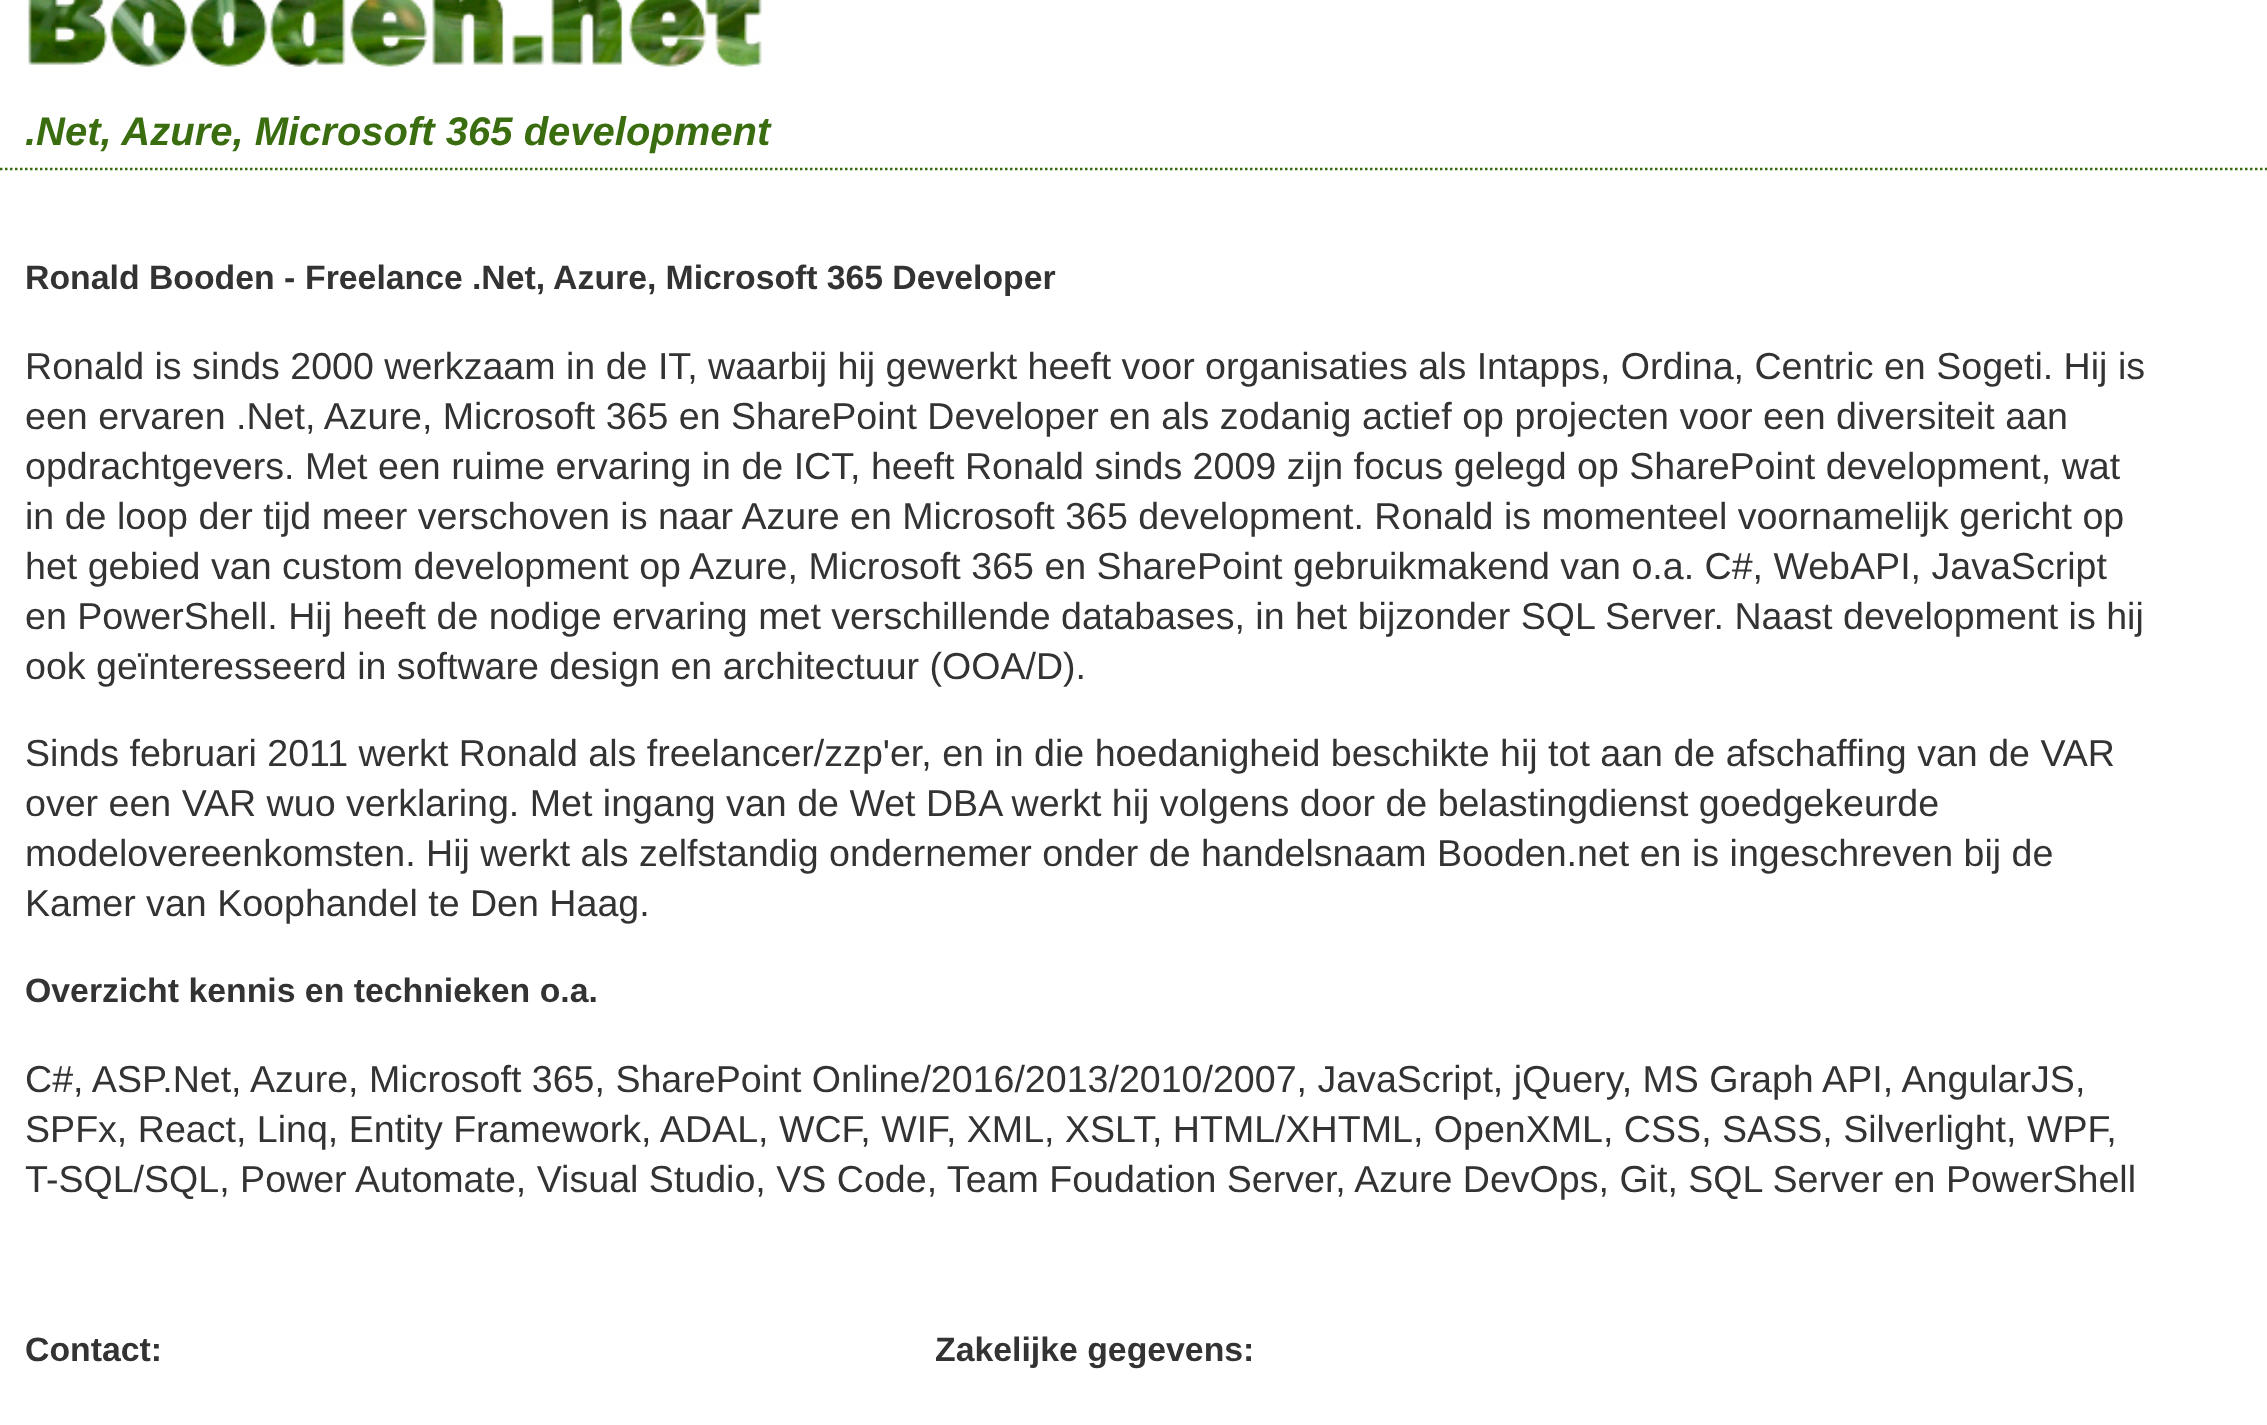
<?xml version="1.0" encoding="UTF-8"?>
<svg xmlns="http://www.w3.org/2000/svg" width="2267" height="1425">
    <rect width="100%" height="100%" fill="#FFFFFF"/>
    <image x="25" y="0" width="737" height="67" href="img_01.png"/>
    <path d="M 0 169 H 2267.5" fill="none" stroke="#396D10" stroke-width="2.5" stroke-dasharray="2.5 2.5"/>
    <text x="25" y="145" font-family="Liberation Sans" font-size="40" font-weight="700" font-style="italic" fill="#396D10">.Net, Azure, Microsoft 365 development</text>
    <text x="25" y="289" font-family="Liberation Sans" font-size="33.8" font-weight="700" fill="#333333">Ronald Booden</text>
    <text x="284" y="289" font-family="Liberation Sans" font-size="33.8" font-weight="700" fill="#333333">-</text>
    <text x="305" y="289" word-spacing="-0.25" font-family="Liberation Sans" font-size="33.8" font-weight="700" fill="#333333">Freelance .Net, Azure, Microsoft 365 Developer</text>
    <text font-family="Liberation Sans" font-size="37.6" fill="#333333">
        <tspan x="25" y="379">Ronald is sinds 2000 werkzaam in de IT, waarbij hij gewerkt heeft voor organisaties als Intapps, Ordina, Centric en Sogeti. Hij is</tspan>
        <tspan x="25" y="429">een ervaren .Net, Azure, Microsoft 365 en SharePoint Developer en als zodanig actief op projecten voor een diversiteit aan</tspan>
        <tspan x="25" y="479">opdrachtgevers. Met een ruime ervaring in de ICT, heeft Ronald sinds 2009 zijn focus gelegd op SharePoint development, wat</tspan>
        <tspan x="25" y="529">in de loop der tijd meer verschoven is naar Azure en Microsoft 365 development. Ronald is momenteel voornamelijk gericht op</tspan>
        <tspan x="25" y="579">het gebied van custom development op Azure, Microsoft 365 en SharePoint gebruikmakend van o.a. C#, WebAPI, JavaScript</tspan>
        <tspan x="25" y="629">en PowerShell. Hij heeft de nodige ervaring met verschillende databases, in het bijzonder SQL Server. Naast development is hij</tspan>
        <tspan x="25" y="679">ook geïnteresseerd in software design en architectuur (OOA/D).</tspan>
    </text>
    <text font-family="Liberation Sans" font-size="37.6" fill="#333333">
        <tspan x="25" y="766">Sinds februari 2011 werkt Ronald als freelancer/zzp'er, en in die hoedanigheid beschikte hij tot aan de afschaffing van de VAR</tspan>
        <tspan x="25" y="816">over een VAR wuo verklaring. Met ingang van de Wet DBA werkt hij volgens door de belastingdienst goedgekeurde</tspan>
        <tspan x="25" y="866">modelovereenkomsten. Hij werkt als zelfstandig ondernemer onder de handelsnaam Booden.net en is ingeschreven bij de</tspan>
        <tspan x="25" y="916">Kamer van Koophandel te Den Haag.</tspan>
    </text>
    <text x="25" y="1002" font-family="Liberation Sans" font-size="33.8" font-weight="700" fill="#333333">Overzicht kennis en technieken o.a.</text>
    <text font-family="Liberation Sans" font-size="37.6" fill="#333333">
        <tspan x="25" y="1092">C#, ASP.Net, Azure, Microsoft 365, SharePoint Online/2016/2013/2010/2007, JavaScript, jQuery, MS Graph API, AngularJS,</tspan>
        <tspan x="25" y="1142">SPFx, React, Linq, Entity Framework, ADAL, WCF, WIF, XML, XSLT, HTML/XHTML, OpenXML, CSS, SASS, Silverlight, WPF,</tspan>
        <tspan x="25" y="1192">T-SQL/SQL, Power Automate, Visual Studio, VS Code, Team Foudation Server, Azure DevOps, Git, SQL Server en PowerShell</tspan>
    </text>
    <text x="25" y="1361" font-family="Liberation Sans" font-size="33.8" font-weight="700" fill="#333333">Contact:</text>
    <text x="935" y="1361" font-family="Liberation Sans" font-size="33.8" font-weight="700" fill="#333333">Zakelijke gegevens:</text>
</svg>
